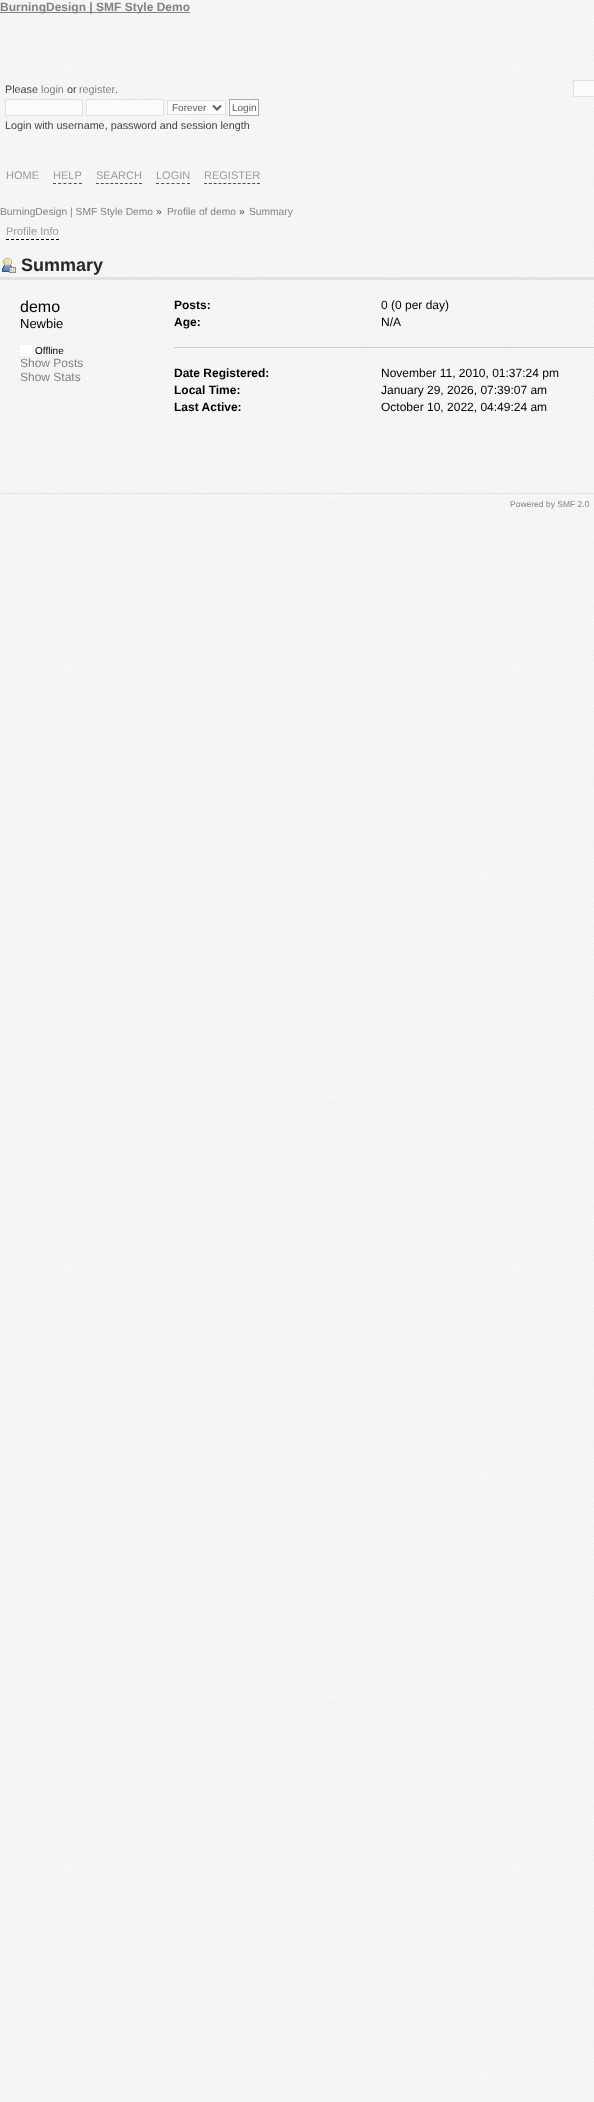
<?xml version="1.0" encoding="UTF-8"?>
<svg xmlns="http://www.w3.org/2000/svg" width="594" height="2102">
    <rect width="100%" height="100%" fill="#F5F5F5"/>
    <image x="1" y="2" width="593" height="2095" href="img_01.png"/>
    <rect x="0" y="12" width="190" height="1" fill="#828282"/>
    <text x="0" y="11" font-family="Liberation Sans" font-size="12" font-weight="700" fill="#828282">BurningDesign | SMF Style Demo</text>
    <text x="5" y="93" font-family="Liberation Sans" font-size="10.8" fill="#444444">Please</text>
    <text x="41" y="93" font-family="Liberation Sans" font-size="10.8" fill="#828282">login</text>
    <text x="67" y="93" font-family="Liberation Sans" font-size="10.8" fill="#444444">or</text>
    <text x="79" y="93" font-family="Liberation Sans" font-size="10.8" fill="#828282">register</text>
    <text x="115" y="93" font-family="Liberation Sans" font-size="10.8" fill="#444444">.</text>
    <rect x="5.5" y="99.5" width="77" height="16" fill="#FBFBFB" stroke="#E2E2E2"/>
    <rect x="86.5" y="99.5" width="77" height="16" fill="#FBFBFB" stroke="#E2E2E2"/>
    <rect x="167.5" y="100.5" width="58" height="14" fill="#FBFBFB" stroke="#E2E2E2"/>
    <path d="M 213 105.5 L 217 109.5 L 221 105.5" fill="none" stroke="#5D5D5D" stroke-width="2"/>
    <text x="172" y="111" font-family="Liberation Sans" font-size="10" fill="#5D5D5D">Forever</text>
    <rect x="229.5" y="99.5" width="29" height="16" fill="#FBFBFB" stroke="#AAAAAA"/>
    <text x="232" y="111" font-family="Liberation Sans" font-size="10" fill="#5D5D5D">Login</text>
    <text x="5" y="129" font-family="Liberation Sans" font-size="10.8" fill="#444444">Login with username, password and session length</text>
    <rect x="573.5" y="80.5" width="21" height="16" fill="#FBFBFB" stroke="#E2E2E2"/>
    <path d="M 6 183.5 H 39" fill="none" stroke="#FFFFFF" stroke-dasharray="3 2"/>
    <text x="6" y="179" font-family="Liberation Sans" font-size="11" fill="#9B9B9B">HOME</text>
    <path d="M 53 183.5 H 82" fill="none" stroke="#4E4E4E" stroke-dasharray="3 2.2"/>
    <text x="53" y="179" font-family="Liberation Sans" font-size="11" fill="#9B9B9B">HELP</text>
    <path d="M 96 183.5 H 142" fill="none" stroke="#4E4E4E" stroke-dasharray="3 1.78"/>
    <text x="96" y="179" font-family="Liberation Sans" font-size="11" fill="#9B9B9B">SEARCH</text>
    <path d="M 156 183.5 H 190" fill="none" stroke="#4E4E4E" stroke-dasharray="3 2.17"/>
    <text x="156" y="179" font-family="Liberation Sans" font-size="11" fill="#9B9B9B">LOGIN</text>
    <path d="M 204 183.5 H 260" fill="none" stroke="#4E4E4E" stroke-dasharray="3 1.82"/>
    <text x="204" y="179" font-family="Liberation Sans" font-size="11" fill="#9B9B9B">REGISTER</text>
    <text x="0" y="215" font-family="Liberation Sans" font-size="10.25" fill="#828282">BurningDesign | SMF Style Demo</text>
    <text x="156" y="215" font-family="Liberation Sans" font-size="10.25" fill="#444444">»</text>
    <text x="167" y="215" font-family="Liberation Sans" font-size="10.25" fill="#828282">Profile of demo</text>
    <text x="239" y="215" font-family="Liberation Sans" font-size="10.25" fill="#444444">»</text>
    <text x="249" y="215" font-family="Liberation Sans" font-size="10.25" fill="#828282">Summary</text>
    <path d="M 6 239.5 H 59" fill="none" stroke="#000000" stroke-dasharray="3 2"/>
    <text x="6" y="235" font-family="Liberation Sans" font-size="11" fill="#9B9B9B">Profile Info</text>
    <rect x="0" y="277" width="594" height="3" fill="#E2E2E2"/>
    <image x="2" y="258" width="14" height="15" href="img_02.png"/>
    <text x="21" y="271" font-family="Liberation Sans" font-size="18" font-weight="700" fill="#282828">Summary</text>
    <text x="20" y="312" font-family="Liberation Sans" font-size="16" fill="#000000">demo</text>
    <text x="20" y="328" font-family="Liberation Sans" font-size="13" fill="#000000">Newbie</text>
    <rect x="20" y="345" width="12" height="11" fill="#FFFFFF"/>
    <text x="35" y="354" font-family="Liberation Sans" font-size="10" fill="#000000">Offline</text>
    <text font-family="Liberation Sans" font-size="12" fill="#828282">
        <tspan x="20" y="367">Show Posts</tspan>
        <tspan x="20" y="381">Show Stats</tspan>
    </text>
    <rect x="174" y="347" width="420" height="1" fill="#CCCCCC"/>
    <text x="174" y="309" font-family="Liberation Sans" font-size="12" font-weight="700" fill="#000000">Posts:</text>
    <text x="381" y="309" font-family="Liberation Sans" font-size="12" fill="#000000">0 (0 per day)</text>
    <text x="174" y="326" font-family="Liberation Sans" font-size="12" font-weight="700" fill="#000000">Age:</text>
    <text x="381" y="326" font-family="Liberation Sans" font-size="12" fill="#000000">N/A</text>
    <text x="174" y="377" font-family="Liberation Sans" font-size="12" font-weight="700" fill="#000000">Date Registered:</text>
    <text x="381" y="377" font-family="Liberation Sans" font-size="12" fill="#000000">November 11, 2010, 01:37:24 pm</text>
    <text x="174" y="394" font-family="Liberation Sans" font-size="12" font-weight="700" fill="#000000">Local Time:</text>
    <text x="381" y="394" font-family="Liberation Sans" font-size="12" fill="#000000">January 29, 2026, 07:39:07 am</text>
    <text x="174" y="411" font-family="Liberation Sans" font-size="12" font-weight="700" fill="#000000">Last Active:</text>
    <text x="381" y="411" font-family="Liberation Sans" font-size="12" fill="#000000">October 10, 2022, 04:49:24 am</text>
    <rect x="0" y="493" width="594" height="1" fill="#E3E3E3"/>
    <text x="510" y="507" font-family="Liberation Sans" font-size="8.5" fill="#828282">Powered by SMF 2.0</text>
</svg>
